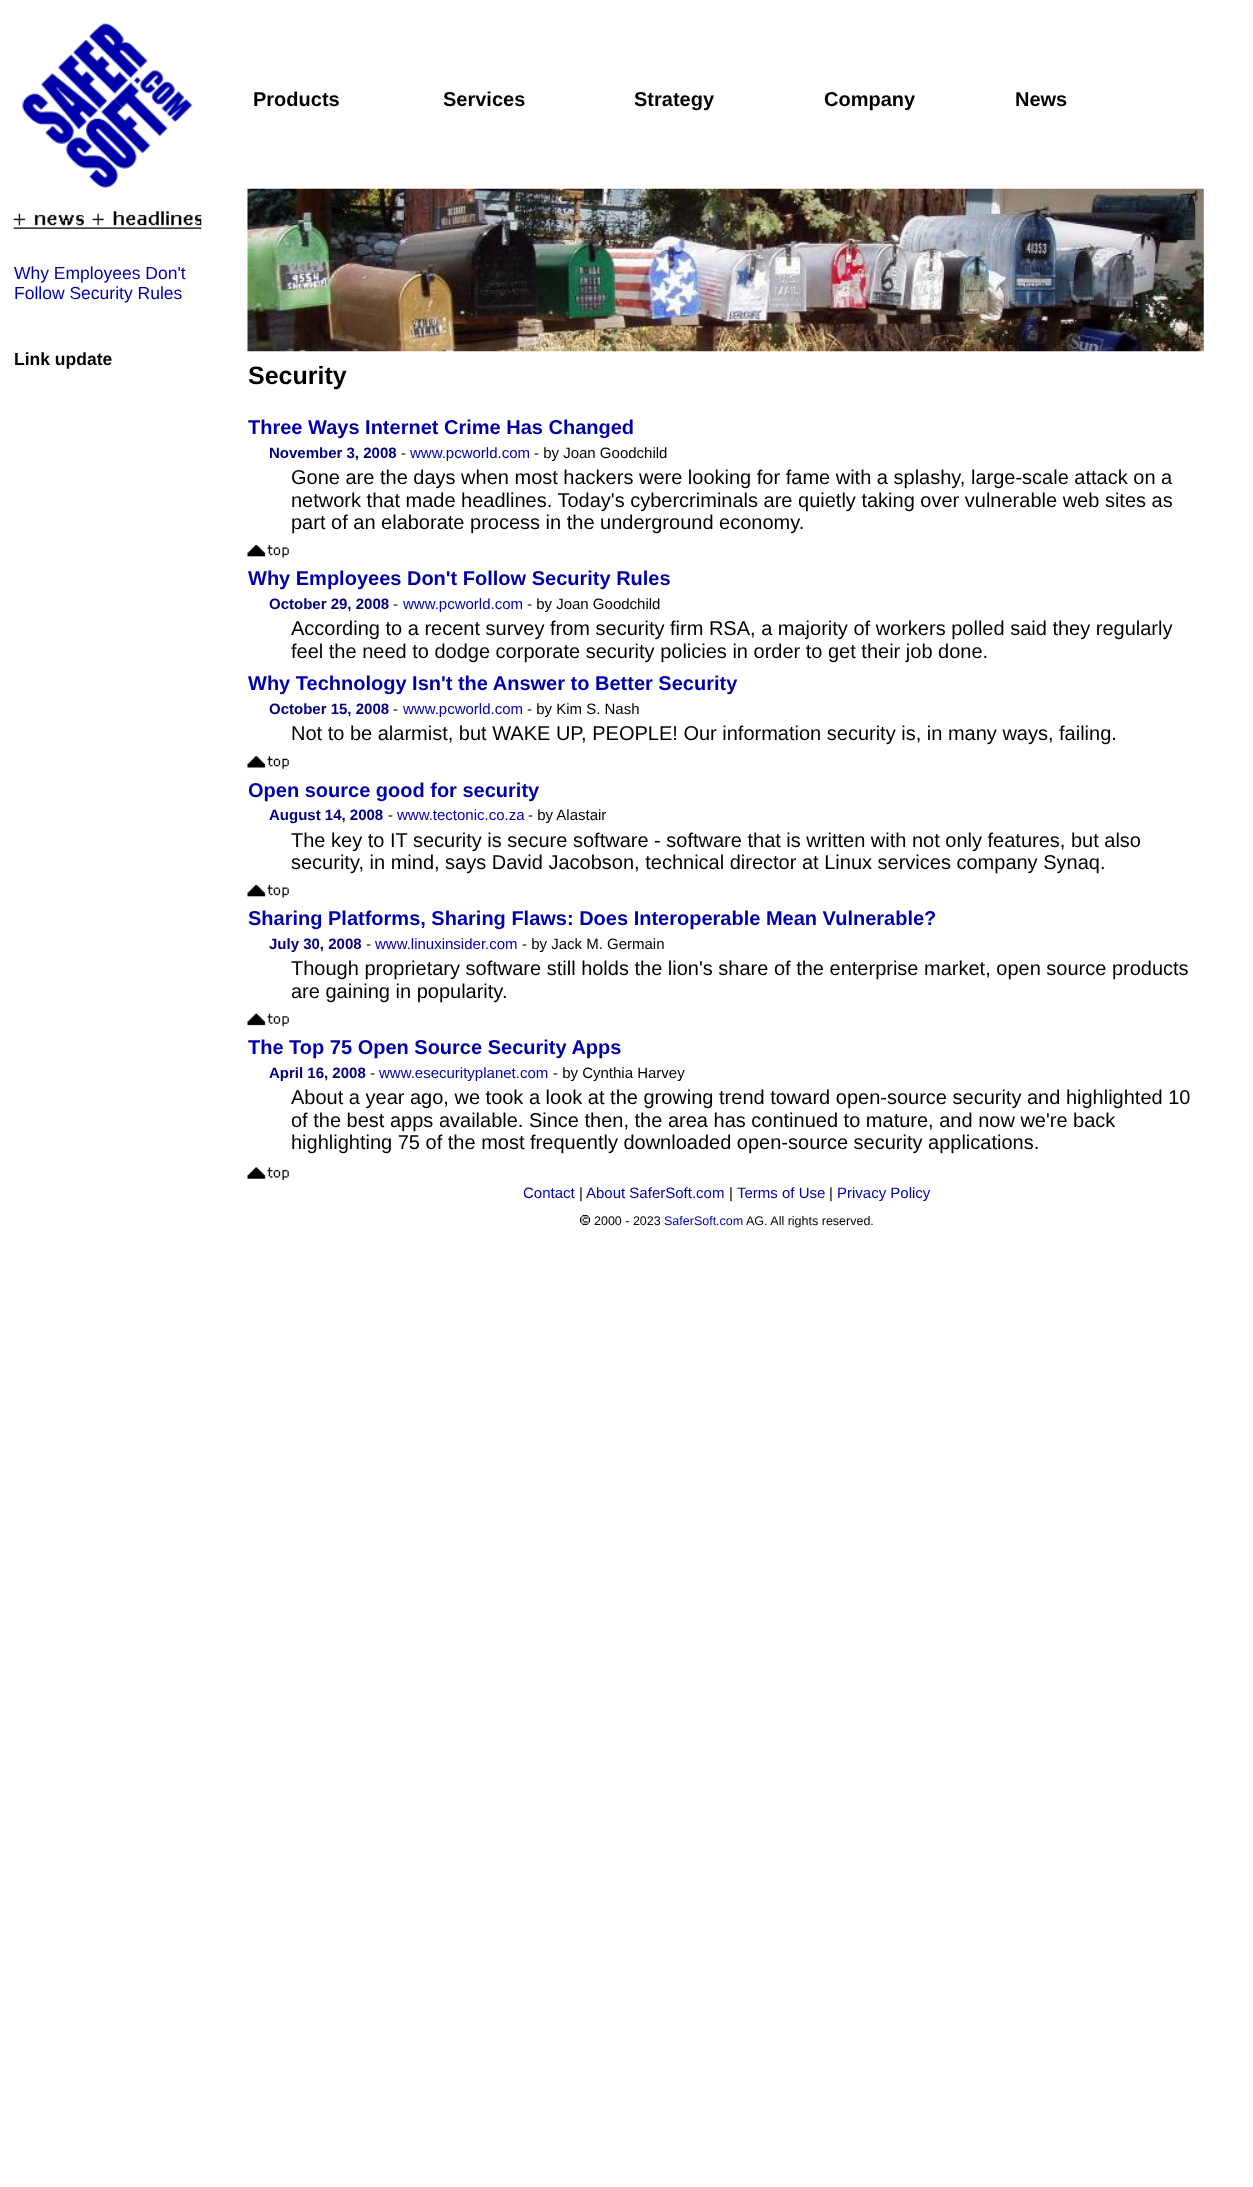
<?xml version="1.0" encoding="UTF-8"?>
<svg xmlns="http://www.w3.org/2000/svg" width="1253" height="2187">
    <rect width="100%" height="100%" fill="#FFFFFF"/>
    <image x="22" y="23" width="171" height="165" href="img_01.png"/>
    <image x="13" y="211" width="189" height="18" href="img_02.png"/>
    <text font-family="Liberation Sans" font-size="17.5" fill="#0000AA">
        <tspan x="14" y="279">Why Employees Don't</tspan>
        <tspan x="14" y="299">Follow Security Rules</tspan>
    </text>
    <text x="14" y="365" font-family="Liberation Sans" font-size="17.5" font-weight="700" fill="#000000">Link update</text>
    <text x="253" y="106" font-family="Liberation Sans" font-size="20" font-weight="700" fill="#000000">Products</text>
    <text x="443" y="106" font-family="Liberation Sans" font-size="20" font-weight="700" fill="#000000">Services</text>
    <text x="634" y="106" font-family="Liberation Sans" font-size="20" font-weight="700" fill="#000000">Strategy</text>
    <text x="824" y="106" font-family="Liberation Sans" font-size="20" font-weight="700" fill="#000000">Company</text>
    <text x="1015" y="106" font-family="Liberation Sans" font-size="20" font-weight="700" fill="#000000">News</text>
    <image x="247" y="188" width="957" height="164" href="img_03.png"/>
    <text x="248" y="384" font-family="Liberation Sans" font-size="25" font-weight="700" fill="#000000">Security</text>
    <text x="248" y="434" font-family="Liberation Sans" font-size="20" font-weight="700" fill="#0000AA">Three Ways Internet Crime Has Changed</text>
    <text x="269" y="458" font-family="Liberation Sans" font-size="15" font-weight="700" fill="#000080">November 3, 2008</text>
    <text x="401" y="458" font-family="Liberation Sans" font-size="15" fill="#000000">-</text>
    <text x="410" y="458" font-family="Liberation Sans" font-size="15" fill="#0000AA">www.pcworld.com</text>
    <text x="534" y="458" font-family="Liberation Sans" font-size="15" fill="#000000">- by Joan Goodchild</text>
    <text font-family="Liberation Sans" font-size="20" fill="#000000">
        <tspan x="291" y="484">Gone are the days when most hackers were looking for fame with a splashy, large-scale attack on a</tspan>
        <tspan x="291" y="507">network that made headlines. Today's cybercriminals are quietly taking over vulnerable web sites as</tspan>
        <tspan x="291" y="529">part of an elaborate process in the underground economy.</tspan>
    </text>
    <image x="247" y="544" width="42" height="14" href="img_04.png"/>
    <text x="248" y="585" font-family="Liberation Sans" font-size="20" font-weight="700" fill="#0000AA">Why Employees Don't Follow Security Rules</text>
    <text x="269" y="609" font-family="Liberation Sans" font-size="15" font-weight="700" fill="#000080">October 29, 2008</text>
    <text x="393" y="609" font-family="Liberation Sans" font-size="15" fill="#000000">-</text>
    <text x="403" y="609" font-family="Liberation Sans" font-size="15" fill="#0000AA">www.pcworld.com</text>
    <text x="527" y="609" font-family="Liberation Sans" font-size="15" fill="#000000">- by Joan Goodchild</text>
    <text font-family="Liberation Sans" font-size="20" fill="#000000">
        <tspan x="291" y="635">According to a recent survey from security firm RSA, a majority of workers polled said they regularly</tspan>
        <tspan x="291" y="658">feel the need to dodge corporate security policies in order to get their job done.</tspan>
    </text>
    <text x="248" y="690" font-family="Liberation Sans" font-size="20" font-weight="700" fill="#0000AA">Why Technology Isn't the Answer to Better Security</text>
    <text x="269" y="714" font-family="Liberation Sans" font-size="15" font-weight="700" fill="#000080">October 15, 2008</text>
    <text x="393" y="714" font-family="Liberation Sans" font-size="15" fill="#000000">-</text>
    <text x="403" y="714" font-family="Liberation Sans" font-size="15" fill="#0000AA">www.pcworld.com</text>
    <text x="527" y="714" font-family="Liberation Sans" font-size="15" fill="#000000">- by Kim S. Nash</text>
    <text x="291" y="740" font-family="Liberation Sans" font-size="20" fill="#000000">Not to be alarmist, but WAKE UP, PEOPLE! Our information security is, in many ways, failing.</text>
    <image x="247" y="756" width="42" height="13" href="img_05.png"/>
    <text x="248" y="797" font-family="Liberation Sans" font-size="20" font-weight="700" fill="#0000AA">Open source good for security</text>
    <text x="269" y="820" font-family="Liberation Sans" font-size="15" font-weight="700" fill="#000080">August 14, 2008</text>
    <text x="388" y="820" font-family="Liberation Sans" font-size="15" fill="#000000">-</text>
    <text x="397" y="820" font-family="Liberation Sans" font-size="15" fill="#0000AA">www.tectonic.co.za</text>
    <text x="528" y="820" font-family="Liberation Sans" font-size="15" fill="#000000">- by Alastair</text>
    <text font-family="Liberation Sans" font-size="20" fill="#000000">
        <tspan x="291" y="847">The key to IT security is secure software - software that is written with not only features, but also</tspan>
        <tspan x="291" y="869">security, in mind, says David Jacobson, technical director at Linux services company Synaq.</tspan>
    </text>
    <image x="247" y="884" width="42" height="14" href="img_04.png"/>
    <text x="248" y="925" font-family="Liberation Sans" font-size="20" font-weight="700" fill="#0000AA">Sharing Platforms, Sharing Flaws: Does Interoperable Mean Vulnerable?</text>
    <text x="269" y="949" font-family="Liberation Sans" font-size="15" font-weight="700" fill="#000080">July 30, 2008</text>
    <text x="366" y="949" font-family="Liberation Sans" font-size="15" fill="#000000">-</text>
    <text x="375" y="949" font-family="Liberation Sans" font-size="15" fill="#0000AA">www.linuxinsider.com</text>
    <text x="522" y="949" font-family="Liberation Sans" font-size="15" fill="#000000">- by Jack M. Germain</text>
    <text font-family="Liberation Sans" font-size="20" fill="#000000">
        <tspan x="291" y="975">Though proprietary software still holds the lion's share of the enterprise market, open source products</tspan>
        <tspan x="291" y="998">are gaining in popularity.</tspan>
    </text>
    <image x="247" y="1013" width="42" height="14" href="img_06.png"/>
    <text x="248" y="1054" font-family="Liberation Sans" font-size="20" font-weight="700" fill="#0000AA">The Top 75 Open Source Security Apps</text>
    <text x="269" y="1078" font-family="Liberation Sans" font-size="15" font-weight="700" fill="#000080">April 16, 2008</text>
    <text x="370" y="1078" font-family="Liberation Sans" font-size="15" fill="#000000">-</text>
    <text x="379" y="1078" font-family="Liberation Sans" font-size="15" fill="#0000AA">www.esecurityplanet.com</text>
    <text x="553" y="1078" font-family="Liberation Sans" font-size="15" fill="#000000">- by Cynthia Harvey</text>
    <text font-family="Liberation Sans" font-size="20" fill="#000000">
        <tspan x="291" y="1104">About a year ago, we took a look at the growing trend toward open-source security and highlighted 10</tspan>
        <tspan x="291" y="1127">of the best apps available. Since then, the area has continued to mature, and now we're back</tspan>
        <tspan x="291" y="1149">highlighting 75 of the most frequently downloaded open-source security applications.</tspan>
    </text>
    <image x="247" y="1167" width="42" height="13" href="img_07.png"/>
    <text x="523" y="1198" font-family="Liberation Sans" font-size="15" fill="#0000AA">Contact</text>
    <text x="579" y="1198" font-family="Liberation Sans" font-size="15" fill="#000000">|</text>
    <text x="586" y="1198" font-family="Liberation Sans" font-size="15" fill="#0000AA">About SaferSoft.com</text>
    <text x="729" y="1198" font-family="Liberation Sans" font-size="15" fill="#000000">|</text>
    <text x="737" y="1198" font-family="Liberation Sans" font-size="15" fill="#0000AA">Terms of Use</text>
    <text x="829" y="1198" font-family="Liberation Sans" font-size="15" fill="#000000">|</text>
    <text x="837" y="1198" font-family="Liberation Sans" font-size="15" fill="#0000AA">Privacy Policy</text>
    <image x="580" y="1215" width="10" height="10" href="img_08.png"/>
    <text x="594" y="1225" font-family="Liberation Sans" font-size="12.5" fill="#000000">2000 - 2023</text>
    <text x="664" y="1225" font-family="Liberation Sans" font-size="12.5" fill="#0000AA">SaferSoft.com</text>
    <text x="746" y="1225" font-family="Liberation Sans" font-size="12.5" fill="#000000">AG. All rights reserved.</text>
</svg>
